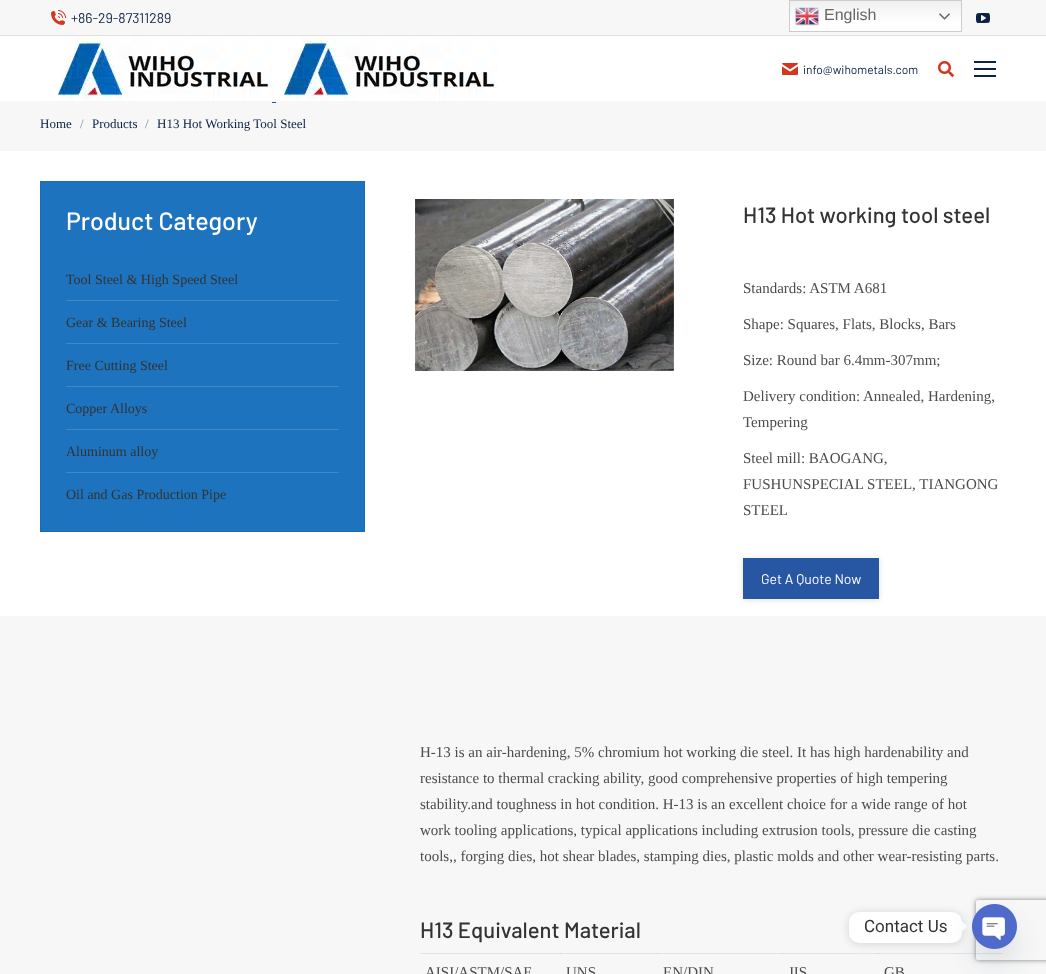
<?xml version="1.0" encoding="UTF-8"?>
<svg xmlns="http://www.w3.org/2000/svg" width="1046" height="974">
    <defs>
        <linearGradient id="g1" gradientUnits="userSpaceOnUse" x1="876" y1="0" x2="876" y2="32"><stop offset="0" stop-color="#EFEFEF"/><stop offset="0.7" stop-color="#FFFFFF"/></linearGradient>
        <filter id="blur1" x="-50%" y="-200%" width="200%" height="500%"><feGaussianBlur stdDeviation="3"/></filter>
        <clipPath id="clip1"><path d="M 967 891 H 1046 V 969 H 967 Z M 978 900 H 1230 C 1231 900 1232 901 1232 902 V 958 C 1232 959 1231 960 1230 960 H 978 C 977 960 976 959 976 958 V 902 C 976 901 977 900 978 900 Z" clip-rule="evenodd"/></clipPath>
        <filter id="blur2" x="-50%" y="-200%" width="200%" height="500%"><feGaussianBlur stdDeviation="2.5"/></filter>
        <filter id="blur3" x="-50%" y="-200%" width="200%" height="500%"><feGaussianBlur stdDeviation="4"/></filter>
        <filter id="blur4" x="-50%" y="-200%" width="200%" height="500%"><feGaussianBlur stdDeviation="12"/></filter>
    </defs>
    <rect width="100%" height="100%" fill="#FFFFFF"/>
    <rect x="0" y="0" width="1046" height="35" fill="#F7F7F7"/>
    <rect x="790" y="1" width="171" height="30" fill="url(#g1)"/>
    <rect x="789.5" y="0.5" width="172" height="31" fill="none" stroke="#CCCCCC"/>
    <image x="795" y="7" width="24" height="19" href="img_01.png"/>
    <text x="824" y="20" font-family="Liberation Sans" font-size="16" fill="#666666">English</text>
    <image x="939" y="13" width="11" height="7" href="img_02.png"/>
    <image x="51" y="10" width="15" height="15" href="img_03.png"/>
    <text x="71" y="23" font-family="Barlow" font-size="14" fill="#0D2242">+86-29-87311289</text>
    <image x="976" y="13" width="14" height="10" href="img_04.png"/>
    <rect x="0" y="35" width="1046" height="1" fill="#E1E1E1"/>
    <image x="57" y="36" width="215" height="65" href="img_05.png"/>
    <image x="283" y="36" width="215" height="65" href="img_05.png"/>
    <rect x="0" y="101" width="1046" height="50" fill="#F7F7F7"/>
    <rect x="272" y="102" width="4" height="1" fill="#2757A2"/>
    <image x="782" y="63" width="16" height="12" href="img_06.png"/>
    <text x="803" y="74" font-family="Barlow" font-size="12" fill="#0D2242">info@wihometals.com</text>
    <image x="938" y="61" width="16" height="16" href="img_07.png"/>
    <rect x="974" y="68" width="22" height="2" fill="#0D2242"/>
    <rect x="974" y="61" width="22" height="2" fill="#0D2242"/>
    <rect x="974" y="75" width="22" height="2" fill="#0D2242"/>
    <text x="40" y="128" font-family="Liberation Serif" font-size="13" fill="#0D2242">Home</text>
    <text x="80" y="128" font-family="Liberation Serif" font-size="13" fill="#828D9D">/</text>
    <text x="92" y="128" font-family="Liberation Serif" font-size="13" fill="#0D2242">Products</text>
    <text x="145" y="128" font-family="Liberation Serif" font-size="13" fill="#828D9D">/</text>
    <text x="157" y="128" font-family="Liberation Serif" font-size="13" fill="#0D2242">H13 Hot Working Tool Steel</text>
    <rect x="40.5" y="181.5" width="324" height="350" fill="#1E73BE" stroke="#1C6CB3"/>
    <text x="66" y="230" font-family="Barlow" font-size="25" font-weight="500" fill="#FFFFFF">Product Category</text>
    <text x="66" y="284" font-family="Liberation Serif" font-size="14" fill="#333333">Tool Steel &amp; High Speed Steel</text>
    <rect x="66" y="300" width="273" height="1" fill="#4088C8"/>
    <text x="66" y="327" font-family="Liberation Serif" font-size="14" fill="#333333">Gear &amp; Bearing Steel</text>
    <rect x="66" y="343" width="273" height="1" fill="#4088C8"/>
    <text x="66" y="370" font-family="Liberation Serif" font-size="14" fill="#333333">Free Cutting Steel</text>
    <rect x="66" y="386" width="273" height="1" fill="#4088C8"/>
    <text x="66" y="413" font-family="Liberation Serif" font-size="14" fill="#333333">Copper Alloys</text>
    <rect x="66" y="429" width="273" height="1" fill="#4088C8"/>
    <text x="66" y="456" font-family="Liberation Serif" font-size="14" fill="#333333">Aluminum alloy</text>
    <rect x="66" y="472" width="273" height="1" fill="#4088C8"/>
    <text x="66" y="499" font-family="Liberation Serif" font-size="14" fill="#333333">Oil and Gas Production Pipe</text>
    <image x="415" y="199" width="259" height="172" href="img_08.png"/>
    <text x="743" y="223" font-family="Barlow" font-size="22" font-weight="500" fill="#333333">H13 Hot working tool steel</text>
    <text x="743" y="293" font-family="Liberation Serif" font-size="15" fill="#4C4C4C">Standards: ASTM A681</text>
    <text x="743" y="329" font-family="Liberation Serif" font-size="15" fill="#4C4C4C">Shape: Squares, Flats, Blocks, Bars</text>
    <text x="743" y="365" font-family="Liberation Serif" font-size="15" fill="#4C4C4C">Size: Round bar 6.4mm-307mm;</text>
    <text font-family="Liberation Serif" font-size="15" fill="#4C4C4C">
        <tspan x="743" y="401">Delivery condition: Annealed, Hardening,</tspan>
        <tspan x="743" y="427">Tempering</tspan>
    </text>
    <text font-family="Liberation Serif" font-size="15" fill="#4C4C4C">
        <tspan x="743" y="463">Steel mill: BAOGANG,</tspan>
        <tspan x="743" y="489">FUSHUNSPECIAL STEEL, TIANGONG</tspan>
        <tspan x="743" y="515">STEEL</tspan>
    </text>
    <rect x="743" y="559" width="136" height="41" fill="#000000" fill-opacity="0.12" filter="url(#blur1)"/>
    <rect x="743" y="558" width="136" height="41" fill="#2757A2"/>
    <text x="761" y="584" font-family="Barlow" font-size="14" fill="#FFFFFF">Get A Quote Now</text>
    <rect x="0" y="616" width="1046" height="358" fill="#F7F7F7"/>
    <rect x="420" y="953" width="582" height="1" fill="#E3E3E3"/>
    <rect x="560" y="953" width="1" height="1" fill="#D1D1D1"/>
    <rect x="657" y="953" width="1" height="1" fill="#D1D1D1"/>
    <rect x="782" y="953" width="1" height="1" fill="#D1D1D1"/>
    <text font-family="Liberation Serif" font-size="15" fill="#4C4C4C">
        <tspan x="420" y="757">H-13 is an air-hardening, 5% chromium hot working die steel. It has high hardenability and</tspan>
        <tspan x="420" y="783">resistance to thermal cracking ability, good comprehensive properties of high tempering</tspan>
        <tspan x="420" y="809">stability.and toughness in hot condition. H-13 is an excellent choice for a wide range of hot</tspan>
        <tspan x="420" y="835">work tooling applications, typical applications including extrusion tools, pressure die casting</tspan>
        <tspan x="420" y="861">tools,, forging dies, hot shear blades, stamping dies, plastic molds and other wear-resisting parts.</tspan>
    </text>
    <text x="420" y="938" font-family="Barlow" font-size="22" font-weight="500" fill="#333333">H13 Equivalent Material</text>
    <text x="425" y="977" font-family="Liberation Serif" font-size="15" fill="#4C4C4C">AISI/ASTM/SAE</text>
    <text x="566" y="977" font-family="Liberation Serif" font-size="15" fill="#4C4C4C">UNS</text>
    <text x="663" y="977" font-family="Liberation Serif" font-size="15" fill="#4C4C4C">EN/DIN</text>
    <text x="788" y="977" font-family="Liberation Serif" font-size="15" fill="#4C4C4C">JIS</text>
    <rect x="878" y="953" width="1" height="1" fill="#D1D1D1"/>
    <text x="884" y="977" font-family="Liberation Serif" font-size="15" fill="#4C4C4C">GB</text>
    <g clip-path="url(#clip1)">
        <rect x="976" y="900" width="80" height="60" rx="2" fill="#808080" filter="url(#blur2)"/>
    </g>
    <rect x="849" y="913" width="113" height="31" rx="10" fill="#000000" fill-opacity="0.15" filter="url(#blur3)"/>
    <rect x="849" y="912" width="113" height="31" rx="10" fill="#FFFFFF"/>
    <text x="864" y="932" font-family="Roboto" font-size="17" fill="#333333">Contact Us</text>
    <path d="M 962 931.5 V 921.5 L 967 926.5 Z" fill="#FFFFFF"/>
    <rect x="972" y="920" width="45" height="45" rx="22.5" fill="#49687E" fill-opacity="0.16" filter="url(#blur4)"/>
    <image x="972" y="904" width="45" height="45" href="img_09.png"/>
</svg>
